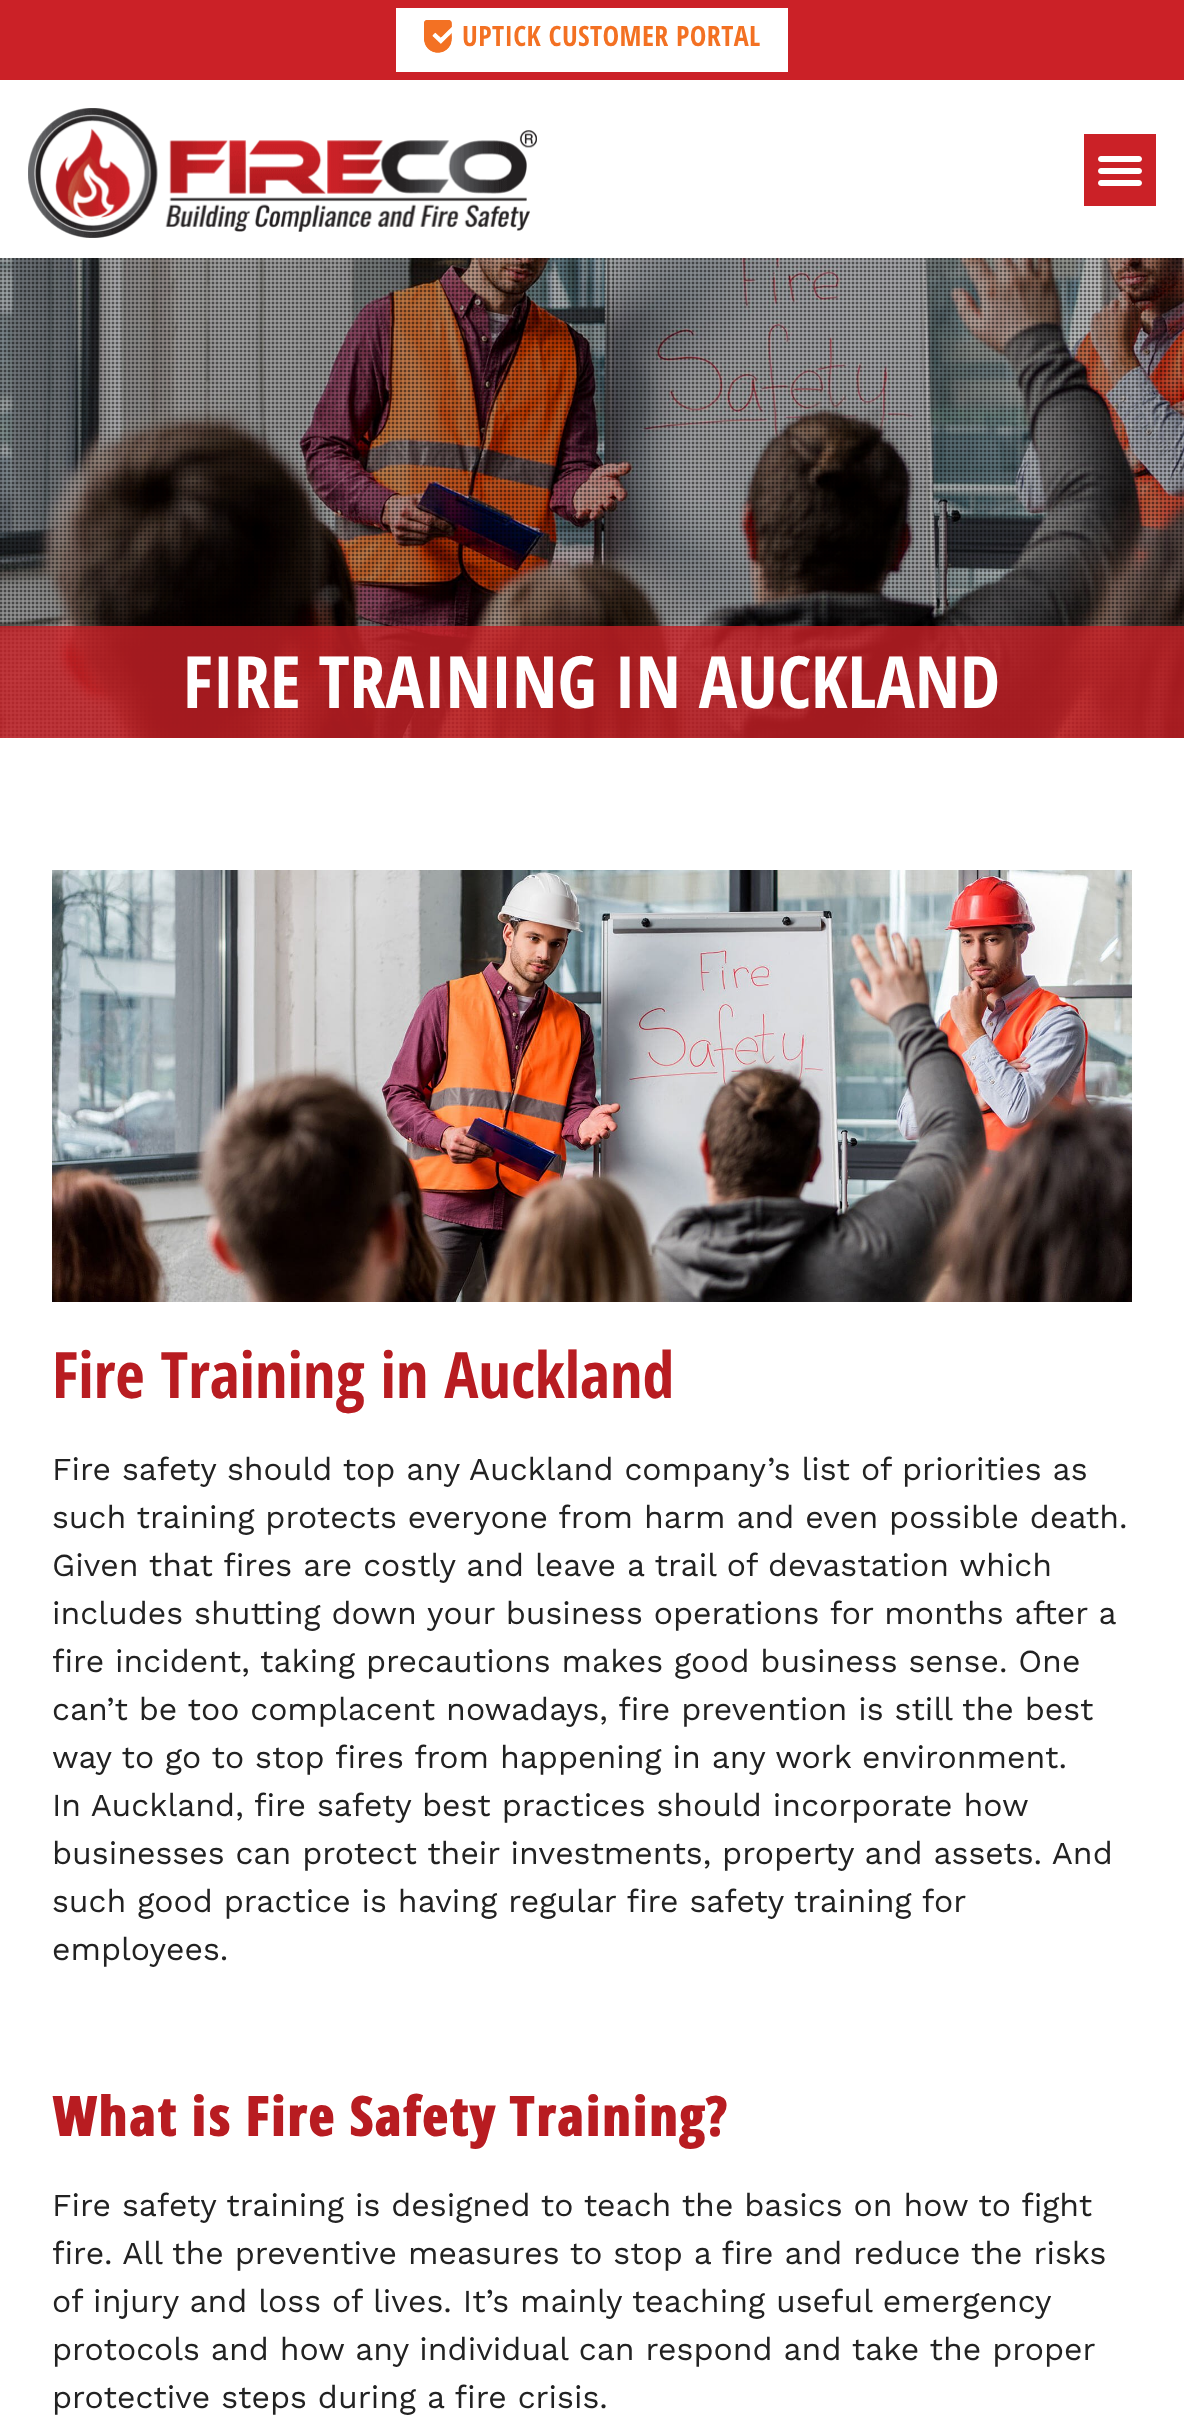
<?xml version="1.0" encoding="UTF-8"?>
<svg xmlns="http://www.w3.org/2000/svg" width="1184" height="2432">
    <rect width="100%" height="100%" fill="#FFFFFF"/>
    <rect x="0" y="0" width="1184" height="80" fill="#CB2127"/>
    <rect x="396" y="8" width="392" height="64" fill="#FFFFFF"/>
    <image x="424" y="20" width="28" height="33" href="img_01.png"/>
    <text x="462" y="46" font-family="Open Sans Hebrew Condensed" font-size="28" font-weight="700" letter-spacing="0.4" fill="#F37123">UPTICK CUSTOMER PORTAL</text>
    <image x="28" y="108" width="509" height="130" href="img_02.png"/>
    <rect x="1084" y="134" width="72" height="72" fill="#CB2127"/>
    <image x="1098" y="156" width="44" height="30" href="img_03.png"/>
    <image x="0" y="258" width="1184" height="480" href="img_04.png"/>
    <image x="0" y="258" width="1184" height="480" href="img_05.png"/>
    <rect x="0" y="626" width="1184" height="112" fill="#CB2127" fill-opacity="0.8"/>
    <text x="183" y="708" font-family="Open Sans Hebrew Condensed" font-size="72" font-weight="700" fill="#FFFFFF">FIRE TRAINING IN AUCKLAND</text>
    <image x="52" y="870" width="1080" height="432" href="img_06.png"/>
    <text x="52" y="1398" font-family="Open Sans Hebrew Condensed" font-size="64" font-weight="700" fill="#B81C21">Fire Training in Auckland</text>
    <text font-family="Work Sans" font-size="32" fill="#222222">
        <tspan x="52" y="1480">Fire safety should top any Auckland company’s list of priorities as</tspan>
        <tspan x="52" y="1528">such training protects everyone from harm and even possible death.</tspan>
        <tspan x="52" y="1576">Given that fires are costly and leave a trail of devastation which</tspan>
        <tspan x="52" y="1624">includes shutting down your business operations for months after a</tspan>
        <tspan x="52" y="1672">fire incident, taking precautions makes good business sense. One</tspan>
        <tspan x="52" y="1720">can’t be too complacent nowadays, fire prevention is still the best</tspan>
        <tspan x="52" y="1768">way to go to stop fires from happening in any work environment.</tspan>
        <tspan x="52" y="1816">In Auckland, fire safety best practices should incorporate how</tspan>
        <tspan x="52" y="1864">businesses can protect their investments, property and assets. And</tspan>
        <tspan x="52" y="1912">such good practice is having regular fire safety training for</tspan>
        <tspan x="52" y="1960">employees.</tspan>
    </text>
    <text x="52" y="2136" font-family="Open Sans Hebrew Condensed" font-size="56" font-weight="800" fill="#B81C21">What is Fire Safety Training?</text>
    <text font-family="Work Sans" font-size="32" fill="#222222">
        <tspan x="52" y="2216">Fire safety training is designed to teach the basics on how to fight</tspan>
        <tspan x="52" y="2264">fire. All the preventive measures to stop a fire and reduce the risks</tspan>
        <tspan x="52" y="2312">of injury and loss of lives. It’s mainly teaching useful emergency</tspan>
        <tspan x="52" y="2360">protocols and how any individual can respond and take the proper</tspan>
        <tspan x="52" y="2408">protective steps during a fire crisis.</tspan>
    </text>
</svg>
